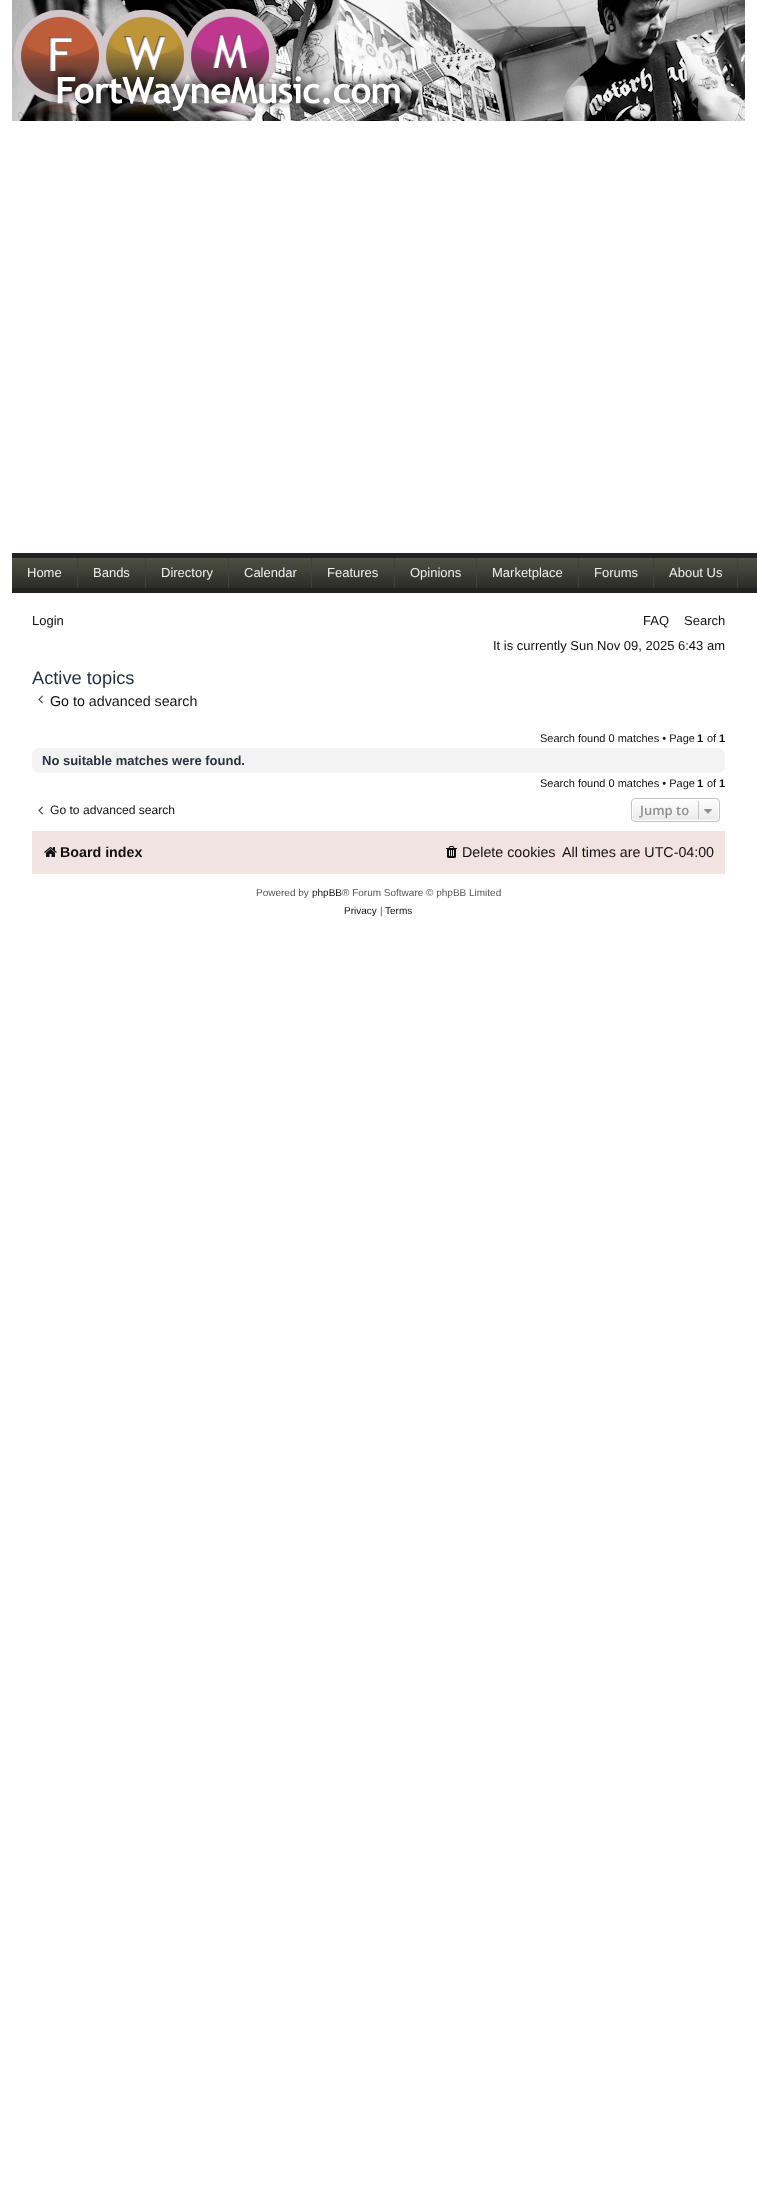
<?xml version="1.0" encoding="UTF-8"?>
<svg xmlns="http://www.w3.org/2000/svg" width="757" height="2208">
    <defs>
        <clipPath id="clip1"><rect x="631" y="798" width="89" height="24" rx="4"/></clipPath>
        <linearGradient id="g1" gradientUnits="userSpaceOnUse" x1="676" y1="799" x2="676" y2="821"><stop offset="0" stop-color="#FFFFFF"/><stop offset="1" stop-color="#E9E9E9"/></linearGradient>
    </defs>
    <rect width="100%" height="100%" fill="#FFFFFF"/>
    <image x="12" y="0" width="733" height="121" href="img_01.png"/>
    <image x="13" y="8" width="396" height="112" href="img_02.png"/>
    <image x="12" y="558" width="745" height="30" href="img_03.png"/>
    <rect x="12" y="553" width="745" height="5" fill="#222222"/>
    <rect x="12" y="588" width="745" height="5" fill="#222222"/>
    <rect x="77" y="558" width="1" height="30" fill="#414238"/>
    <text x="27" y="577" font-family="Liberation Sans" font-size="13" fill="#EFEFEF">Home</text>
    <rect x="145" y="558" width="1" height="30" fill="#414238"/>
    <text x="93" y="577" font-family="Liberation Sans" font-size="13" fill="#EFEFEF">Bands</text>
    <rect x="228" y="558" width="1" height="30" fill="#414238"/>
    <text x="161" y="577" font-family="Liberation Sans" font-size="13" fill="#EFEFEF">Directory</text>
    <rect x="311" y="558" width="1" height="30" fill="#414238"/>
    <text x="244" y="577" font-family="Liberation Sans" font-size="13" fill="#EFEFEF">Calendar</text>
    <rect x="394" y="558" width="1" height="30" fill="#414238"/>
    <text x="327" y="577" font-family="Liberation Sans" font-size="13" fill="#EFEFEF">Features</text>
    <rect x="476" y="558" width="1" height="30" fill="#414238"/>
    <text x="410" y="577" font-family="Liberation Sans" font-size="13" fill="#EFEFEF">Opinions</text>
    <rect x="578" y="558" width="1" height="30" fill="#414238"/>
    <text x="492" y="577" font-family="Liberation Sans" font-size="13" fill="#EFEFEF">Marketplace</text>
    <rect x="653" y="558" width="1" height="30" fill="#414238"/>
    <text x="594" y="577" font-family="Liberation Sans" font-size="13" fill="#EFEFEF">Forums</text>
    <rect x="737" y="558" width="1" height="30" fill="#414238"/>
    <text x="669" y="577" font-family="Liberation Sans" font-size="13" fill="#EFEFEF">About Us</text>
    <text x="32" y="625" font-family="Liberation Sans" font-size="13" fill="#111111">Login</text>
    <text x="643" y="625" font-family="Liberation Sans" font-size="13" fill="#111111">FAQ</text>
    <text x="684" y="625" font-family="Liberation Sans" font-size="13" fill="#111111">Search</text>
    <text x="493" y="650" font-family="Liberation Sans" font-size="13" fill="#111111">It is currently Sun Nov 09, 2025 6:43 am</text>
    <text x="32" y="684" font-family="Liberation Sans" font-size="18.25" fill="#28313F">Active topics</text>
    <image x="38" y="695" width="5" height="9" href="img_04.png"/>
    <text x="50" y="706" font-family="Liberation Sans" font-size="14.25" fill="#111111">Go to advanced search</text>
    <text x="540" y="742" font-family="Liberation Sans" font-size="11" fill="#111111">Search found 0 matches • Page</text>
    <text x="697" y="742" font-family="Liberation Sans" font-size="11" font-weight="700" fill="#111111">1</text>
    <text x="707" y="742" font-family="Liberation Sans" font-size="11" fill="#111111">of</text>
    <text x="719" y="742" font-family="Liberation Sans" font-size="11" font-weight="700" fill="#111111">1</text>
    <rect x="32" y="748" width="693" height="25" rx="7" fill="#F3F3F3"/>
    <text x="42" y="765" font-family="Liberation Sans" font-size="13" font-weight="700" fill="#28313F">No suitable matches were found.</text>
    <text x="540" y="787" font-family="Liberation Sans" font-size="11" fill="#111111">Search found 0 matches • Page</text>
    <text x="697" y="787" font-family="Liberation Sans" font-size="11" font-weight="700" fill="#111111">1</text>
    <text x="707" y="787" font-family="Liberation Sans" font-size="11" fill="#111111">of</text>
    <text x="719" y="787" font-family="Liberation Sans" font-size="11" font-weight="700" fill="#111111">1</text>
    <image x="38" y="806" width="5" height="9" href="img_04.png"/>
    <text x="50" y="814" font-family="Liberation Sans" font-size="12.1" fill="#111111">Go to advanced search</text>
    <g clip-path="url(#clip1)">
        <rect x="631" y="799" width="89" height="22" fill="url(#g1)"/>
    </g>
    <rect x="632.5" y="799.5" width="86" height="21" rx="2.5" fill="none" stroke="#FFFFFF"/>
    <rect x="631.5" y="798.5" width="88" height="23" rx="3.5" fill="none" stroke="#C7C3BF"/>
    <text x="640" y="815" font-family="Open Sans" font-size="13" font-weight="600" fill="#8F8F8F">Jump to</text>
    <rect x="698" y="801" width="1" height="18" fill="#C7C3BF"/>
    <image x="704" y="809" width="8" height="5" href="img_05.png"/>
    <rect x="32" y="831" width="693" height="43" fill="#F1E3DF"/>
    <image x="44" y="847" width="13" height="10" href="img_06.png"/>
    <text x="60" y="857" font-family="Liberation Sans" font-size="14.25" font-weight="700" fill="#111111">Board index</text>
    <image x="446" y="846" width="11" height="12" href="img_07.png"/>
    <text x="462" y="857" font-family="Liberation Sans" font-size="14.25" fill="#111111">Delete cookies</text>
    <text x="562" y="857" font-family="Liberation Sans" font-size="14.25" fill="#111111">All times are UTC-04:00</text>
    <text x="256" y="896" font-family="Liberation Sans" font-size="10" fill="#555555">Powered by</text>
    <text x="312" y="896" font-family="Liberation Sans" font-size="10" fill="#111111">phpBB</text>
    <text x="342" y="896" font-family="Liberation Sans" font-size="10" fill="#555555">® Forum Software © phpBB Limited</text>
    <text x="344" y="914" font-family="Liberation Sans" font-size="10" fill="#111111">Privacy</text>
    <text x="380" y="914" font-family="Liberation Sans" font-size="10" fill="#555555">|</text>
    <text x="385" y="914" font-family="Liberation Sans" font-size="10" fill="#111111">Terms</text>
</svg>
